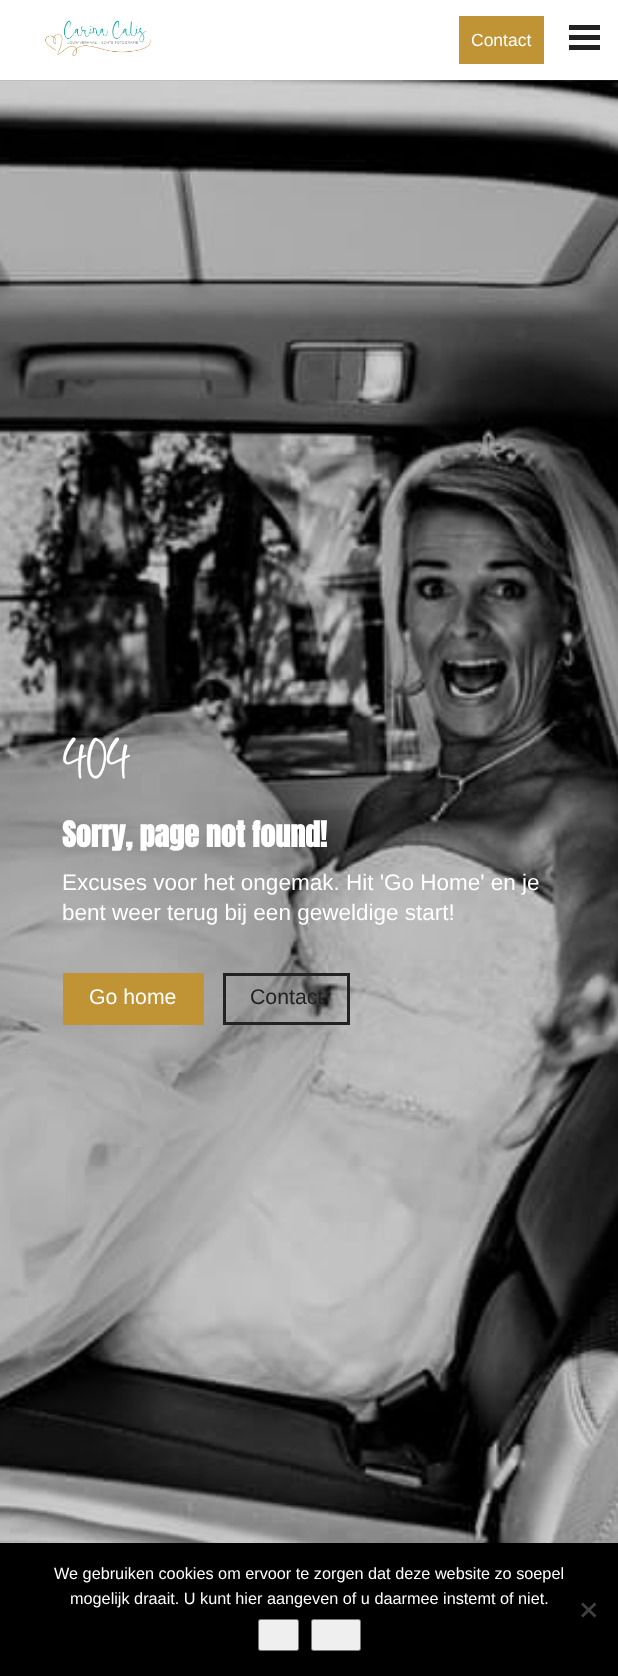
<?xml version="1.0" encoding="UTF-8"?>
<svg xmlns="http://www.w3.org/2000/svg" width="618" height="1676">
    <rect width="100%" height="100%" fill="#FFFFFF"/>
    <image x="0" y="80" width="618" height="1463" href="img_02.png"/>
    <path d="M 0 80 V 81 H 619 V 1 V 80 Z" fill="#808080" fill-opacity="0.15"/>
    <image x="45" y="20" width="106" height="37" href="img_01.png"/>
    <rect x="459" y="16" width="85" height="48" fill="#C09334"/>
    <text x="471" y="46" font-family="Liberation Sans" font-size="17.5" fill="#FFFFFF">Contact</text>
    <rect x="569" y="35" width="31" height="5" fill="#222222"/>
    <rect x="569" y="25" width="31" height="5" fill="#222222"/>
    <rect x="569" y="45" width="31" height="5" fill="#222222"/>
    <text x="62" y="780" font-family="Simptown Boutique" font-size="60" font-weight="700" fill="#FFFFFF">404</text>
    <text x="62" y="847" font-family="Anton" font-size="30" font-weight="700" fill="#FFFFFF">Sorry, page not found!</text>
    <text font-family="Liberation Sans" font-size="22.5" fill="#FFFFFF">
        <tspan x="62" y="890">Excuses voor het ongemak. Hit 'Go Home' en je</tspan>
        <tspan x="62" y="920">bent weer terug bij een geweldige start!</tspan>
    </text>
    <rect x="63" y="973" width="141" height="52" fill="#C09334"/>
    <text x="89" y="1004" font-family="Liberation Sans" font-size="21.25" fill="#FFFFFF">Go home</text>
    <rect x="224.5" y="974.5" width="124" height="49" fill="none" stroke="#222222" stroke-width="3"/>
    <text x="250" y="1004" font-family="Liberation Sans" font-size="21.25" fill="#222222">Contact</text>
    <rect x="0" y="1543" width="618" height="133" fill="#000000"/>
    <text x="54" y="1579" font-family="Liberation Sans" font-size="16.25" fill="#FFFFFF">We gebruiken cookies om ervoor te zorgen dat deze website zo soepel</text>
    <text x="70" y="1604" font-family="Liberation Sans" font-size="16.25" fill="#FFFFFF">mogelijk draait. U kunt hier aangeven of u daarmee instemt of niet.</text>
    <path d="M 594.5 1602.5 L 596.5 1604.5 L 583 1617.5 L 581 1615.5 Z" fill="#404040"/>
    <path d="M 581 1604.5 L 583 1602.5 L 596.5 1615.5 L 594.5 1617.5 Z" fill="#404040"/>
    <rect x="258.5" y="1619.5" width="40" height="31" rx="2" fill="#EFEFEF" stroke="#767676"/>
    <rect x="311.5" y="1619.5" width="49" height="31" rx="2" fill="#EFEFEF" stroke="#767676"/>
</svg>
